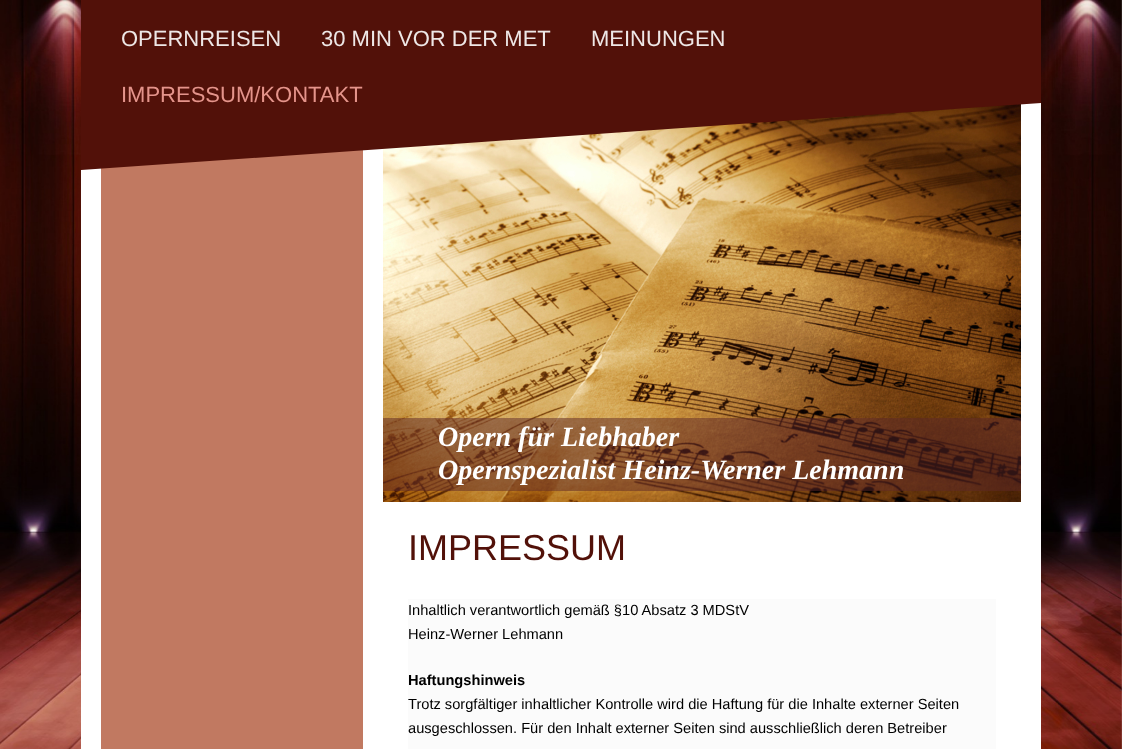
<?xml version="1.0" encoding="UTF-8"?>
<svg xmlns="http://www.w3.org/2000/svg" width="1122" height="749">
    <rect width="100%" height="100%" fill="#FFFFFF"/>
    <image x="0" y="0" width="1122" height="749" href="img_01.png"/>
    <rect x="81" y="103" width="960" height="646" fill="#FFFFFF"/>
    <path d="M 101 160 L 363 142 V 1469 L 101 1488 Z" fill="#C17961"/>
    <image x="383" y="104" width="638" height="398" href="img_02.png"/>
    <path d="M 81 -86 L 1041 -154 V 103 L 81 170 Z" fill="#521109"/>
    <text x="121" y="46" font-family="Liberation Sans" font-size="22" fill="#EEE7E6">OPERNREISEN</text>
    <text x="321" y="46" font-family="Liberation Sans" font-size="22" fill="#EEE7E6">30 MIN VOR DER MET</text>
    <text x="591" y="46" font-family="Liberation Sans" font-size="22" fill="#EEE7E6">MEINUNGEN</text>
    <text x="121" y="102" font-family="Liberation Sans" font-size="22" fill="#E4948B">IMPRESSUM/KONTAKT</text>
    <rect x="383" y="418" width="638" height="73" fill="#5D2727" fill-opacity="0.5"/>
    <text font-family="Liberation Serif" font-size="28" font-weight="700" font-style="italic" fill="#FFFFFF">
        <tspan x="438" y="446">Opern für Liebhaber</tspan>
        <tspan x="438" y="479">Opernspezialist Heinz-Werner Lehmann</tspan>
    </text>
    <text x="408" y="560" font-family="Liberation Sans" font-size="36" fill="#521109">IMPRESSUM</text>
    <rect x="408" y="599" width="588" height="150" fill="#FBFBFB"/>
    <text font-family="Liberation Sans" font-size="14.65" fill="#000000">
        <tspan x="408" y="615">Inhaltlich verantwortlich gemäß §10 Absatz 3 MDStV</tspan>
        <tspan x="408" y="639">Heinz-Werner Lehmann</tspan>
    </text>
    <text x="408" y="685" font-family="Liberation Sans" font-size="14.65" font-weight="700" fill="#000000">Haftungshinweis</text>
    <text font-family="Liberation Sans" font-size="14.65" fill="#000000">
        <tspan x="408" y="709">Trotz sorgfältiger inhaltlicher Kontrolle wird die Haftung für die Inhalte externer Seiten</tspan>
        <tspan x="408" y="733">ausgeschlossen. Für den Inhalt externer Seiten sind ausschließlich deren Betreiber</tspan>
    </text>
</svg>
